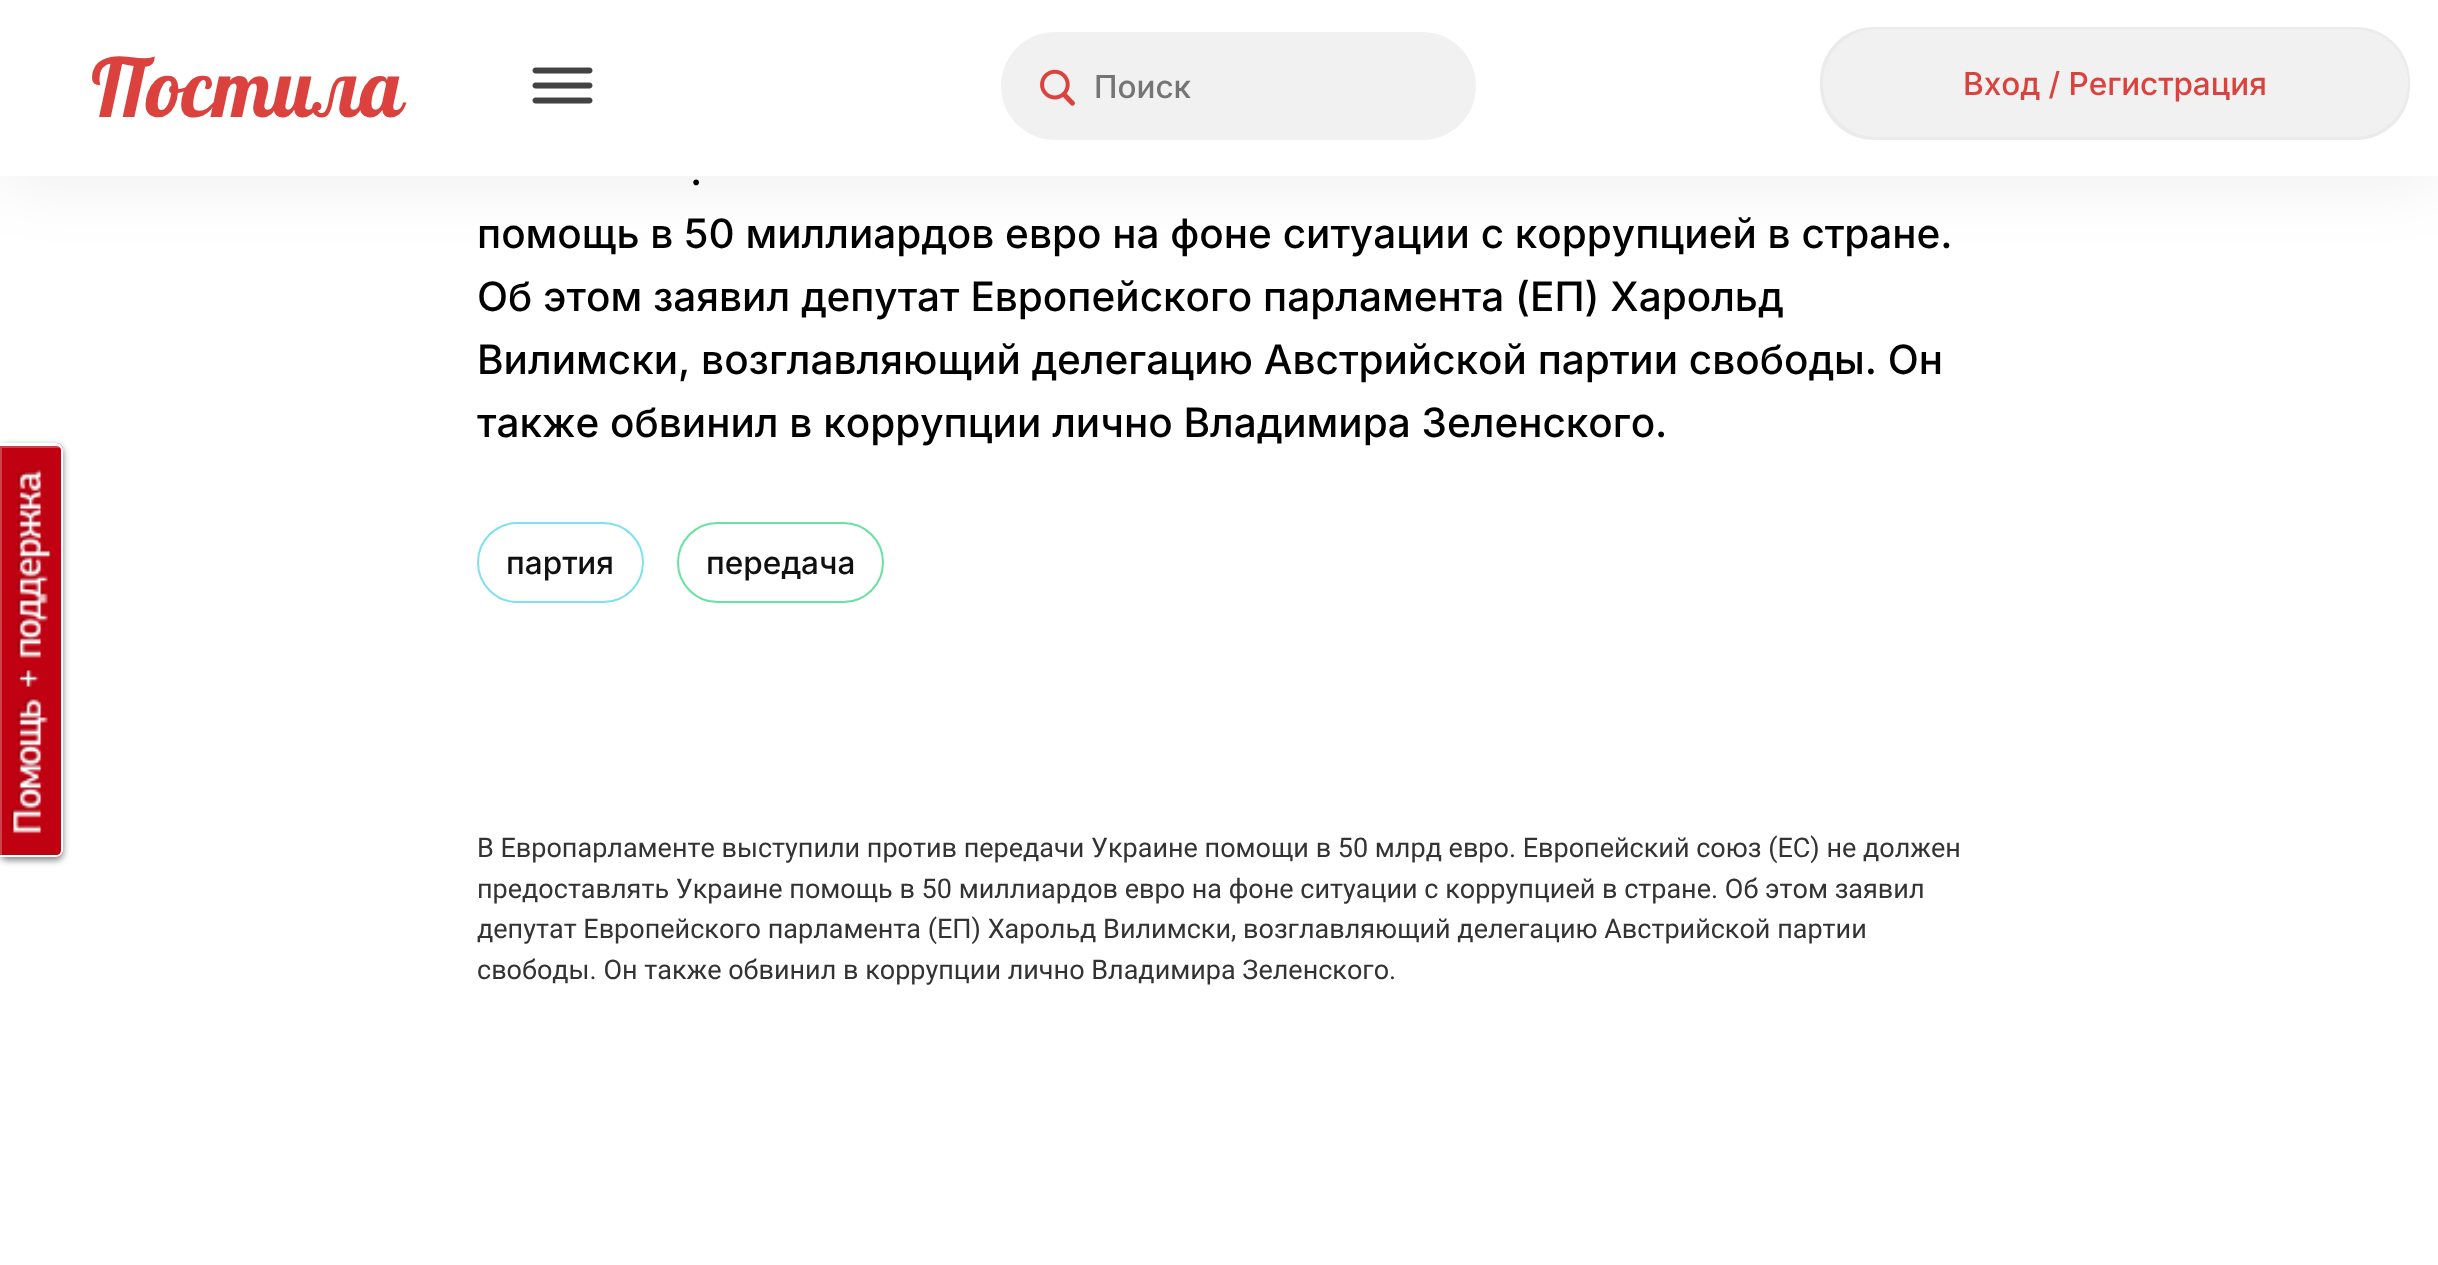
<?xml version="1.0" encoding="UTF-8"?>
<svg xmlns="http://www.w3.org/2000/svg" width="2438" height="1265">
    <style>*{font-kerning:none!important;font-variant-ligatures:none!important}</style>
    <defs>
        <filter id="blur1" x="-50%" y="-200%" width="200%" height="500%"><feGaussianBlur stdDeviation="36"/></filter>
        <filter id="blur2" x="-50%" y="-200%" width="200%" height="500%"><feGaussianBlur stdDeviation="3.5"/></filter>
    </defs>
    <rect width="100%" height="100%" fill="#FFFFFF"/>
    <rect x="0" y="0" width="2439" height="176" fill="#000000" fill-opacity="0.08" filter="url(#blur1)"/>
    <rect x="0" y="0" width="2438" height="176" fill="#FFFFFF"/>
    <text x="91" y="117" font-family="Lobster" font-size="81" fill="#DC423D">Постила</text>
    <image x="532" y="67" width="61" height="37" href="img_01.png"/>
    <rect x="1001" y="32" width="475" height="108" rx="54" fill="#F1F1F1"/>
    <image x="1040" y="69" width="35" height="37" href="img_02.png"/>
    <text x="1094" y="98" font-family="Inter" font-size="31.5" font-weight="500" fill="#757575">Поиск</text>
    <rect x="1820" y="27" width="590" height="113" rx="54" fill="#EBEBEB"/>
    <rect x="1823" y="29" width="585" height="108" rx="54" fill="#F1F1F1"/>
    <text x="1963" y="95" font-family="Inter" font-size="31.5" font-weight="500" fill="#DC423D">Вход / Регистрация</text>
    <rect x="0" y="446" width="63" height="414" rx="7" fill="#000000" fill-opacity="0.5" filter="url(#blur2)"/>
    <path d="M 0 443 H 56 C 60 443 63 446 63 450 V 850 C 63 854 60 857 56 857 H 0 Z" fill="#C00111"/>
    <path d="M 2 448 H 58 H 60 C 59 447 58 446 56 446 H 0 V 855 H 2 Z" fill="#D0404C"/>
    <path d="M 0 443 H 56 C 60 443 63 446 63 450 V 850 C 63 854 60 857 56 857 H 0 Z M 0 446 H 56 C 59 446 61 448 61 450 V 850 C 61 853 59 855 56 855 H 0 Z" fill="#FFFFFF" fill-rule="evenodd"/>
    <image x="10" y="468" width="41" height="366" href="img_03.png"/>
    <text x="690" y="185" font-family="Inter" font-size="40.5" font-weight="500" fill="#000000">.</text>
    <text font-family="Inter" font-size="40.5" font-weight="500" fill="#000000">
        <tspan x="477" y="248">помощь в 50 миллиардов евро на фоне ситуации с коррупцией в стране.</tspan>
        <tspan x="477" y="311">Об этом заявил депутат Европейского парламента (ЕП) Харольд</tspan>
        <tspan x="477" y="374">Вилимски, возглавляющий делегацию Австрийской партии свободы. Он</tspan>
        <tspan x="477" y="437">также обвинил в коррупции лично Владимира Зеленского.</tspan>
    </text>
    <rect x="478" y="523" width="165" height="79" rx="39.5" fill="none" stroke="#7EE1EF" stroke-width="2"/>
    <text x="506" y="574" font-family="Inter" font-size="31.5" font-weight="500" fill="#101010">партия</text>
    <rect x="678" y="523" width="205" height="79" rx="39.5" fill="none" stroke="#68E2A0" stroke-width="2"/>
    <text x="706" y="574" font-family="Inter" font-size="31.5" font-weight="500" fill="#101010">передача</text>
    <text font-family="Roboto" font-size="27" fill="#333333">
        <tspan x="477" y="857">В Европарламенте выступили против передачи Украине помощи в 50 млрд евро. Европейский союз (ЕС) не должен</tspan>
        <tspan x="477" y="898">предоставлять Украине помощь в 50 миллиардов евро на фоне ситуации с коррупцией в стране. Об этом заявил</tspan>
        <tspan x="477" y="938">депутат Европейского парламента (ЕП) Харольд Вилимски, возглавляющий делегацию Австрийской партии</tspan>
        <tspan x="477" y="979">свободы. Он также обвинил в коррупции лично Владимира Зеленского.</tspan>
    </text>
</svg>
